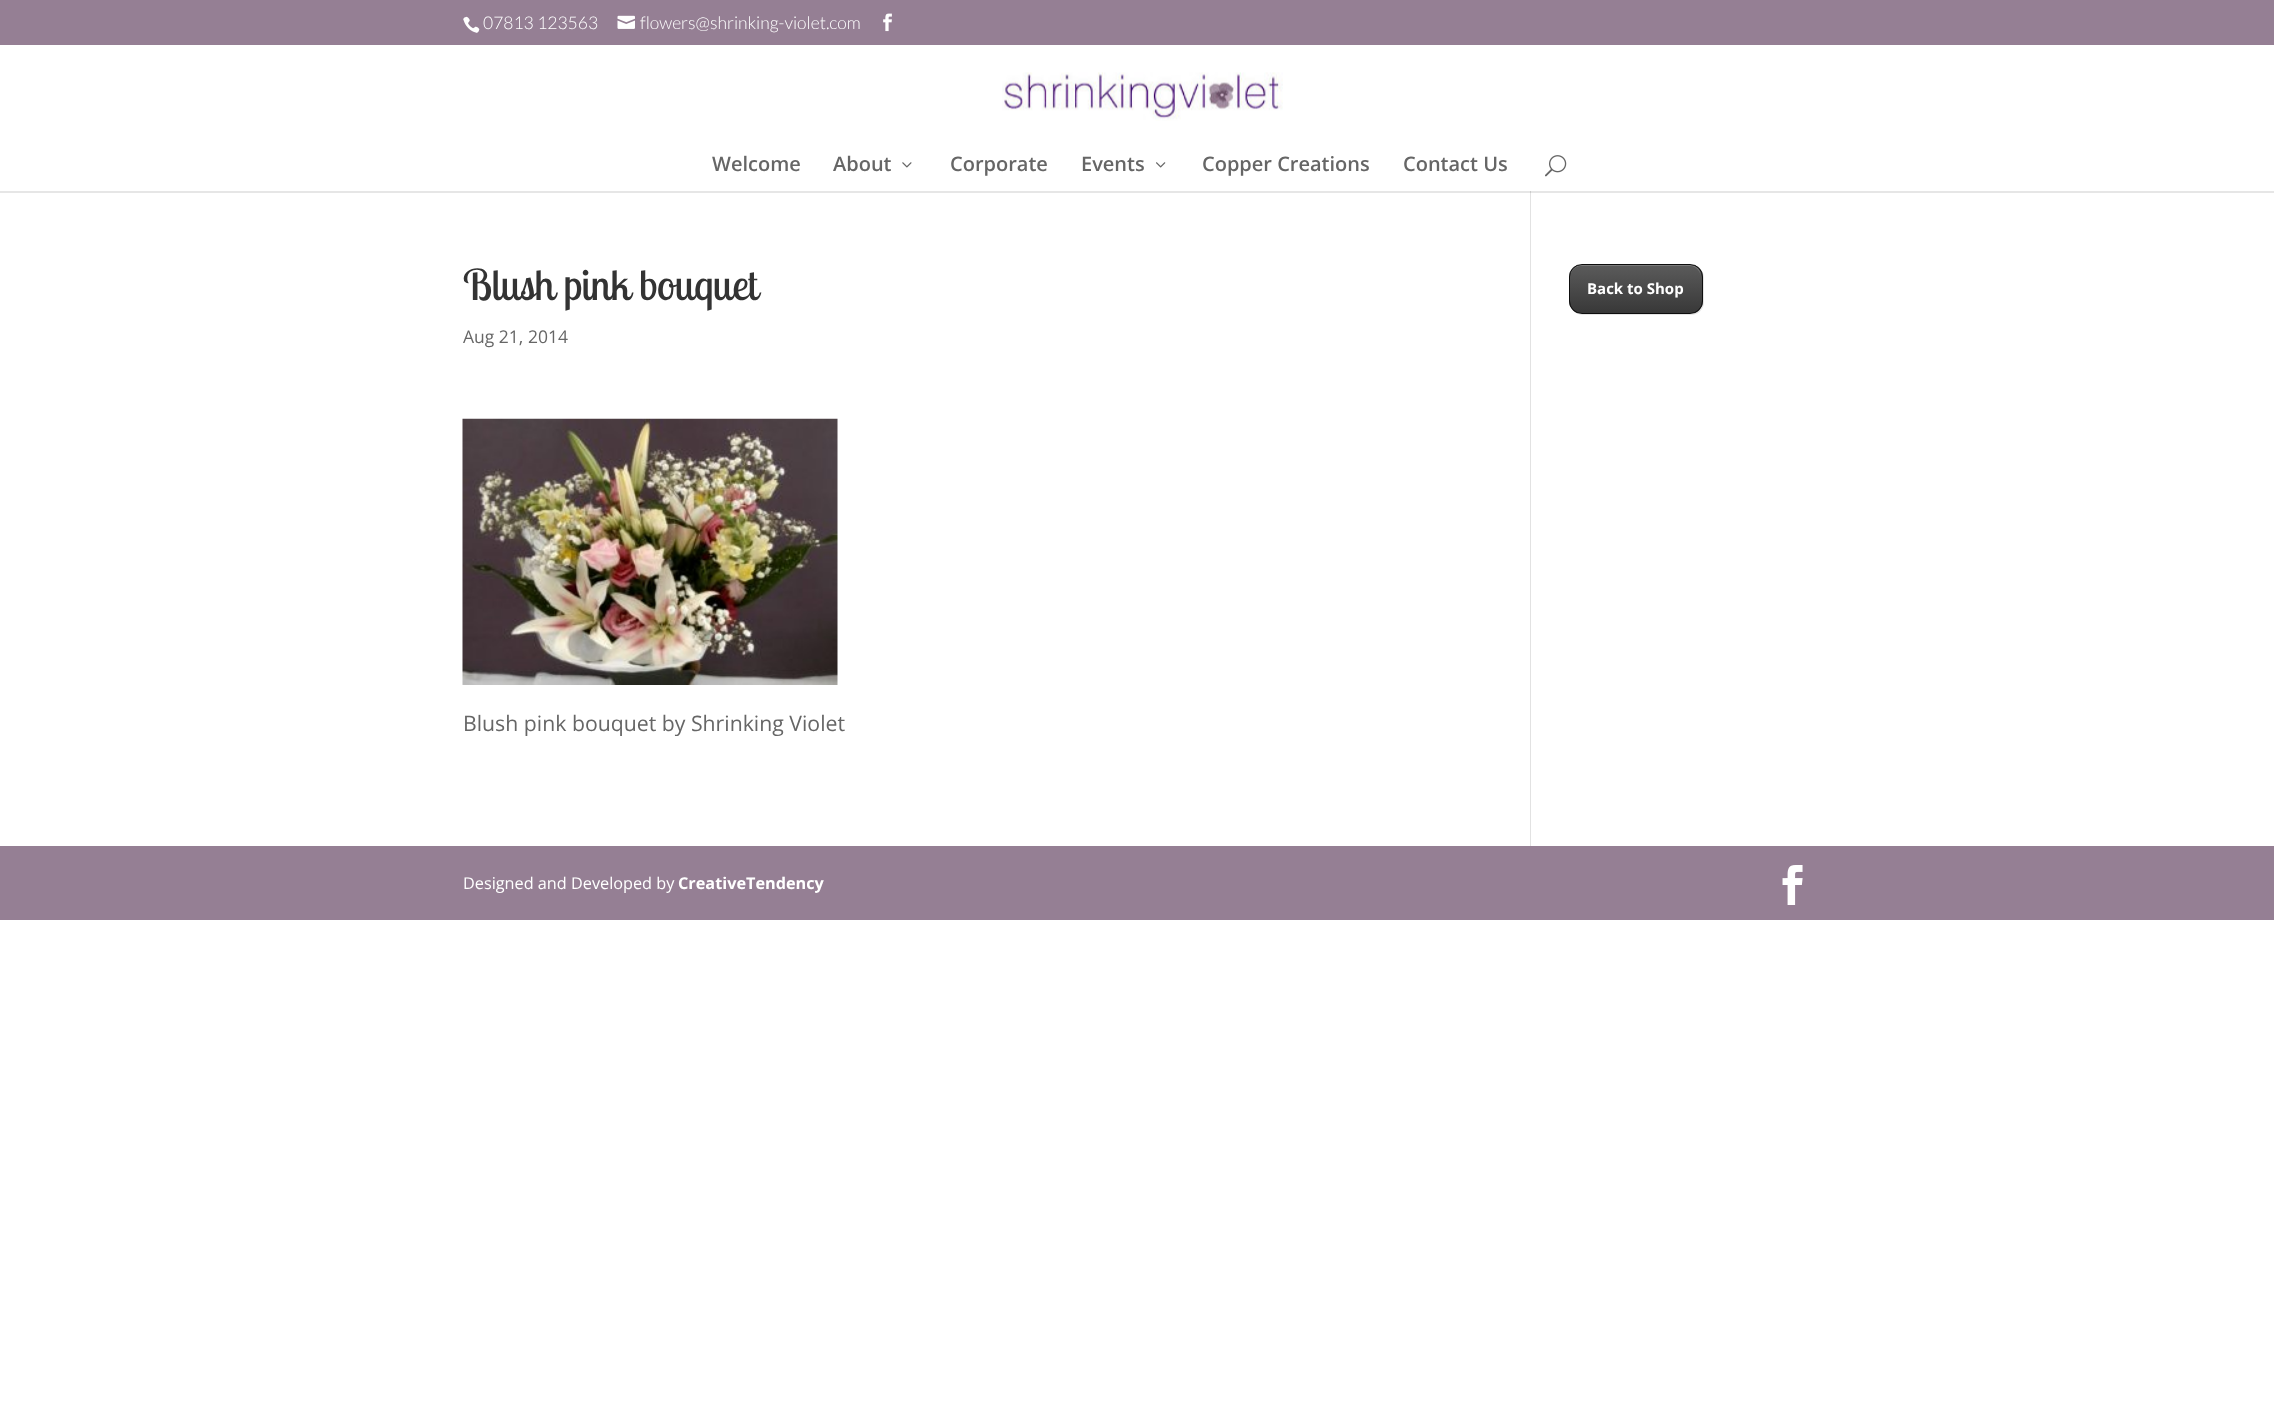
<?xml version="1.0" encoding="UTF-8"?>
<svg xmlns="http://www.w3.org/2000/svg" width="2274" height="1423">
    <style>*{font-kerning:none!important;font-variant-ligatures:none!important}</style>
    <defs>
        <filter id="blur1" x="-50%" y="-200%" width="200%" height="500%"><feGaussianBlur stdDeviation="0.5"/></filter>
        <clipPath id="clip1"><rect x="1569" y="264" width="134" height="50" rx="13"/></clipPath>
        <linearGradient id="g1" gradientUnits="userSpaceOnUse" x1="1636" y1="265" x2="1636" y2="313"><stop offset="0" stop-color="#5B5B5B"/><stop offset="1" stop-color="#383838"/></linearGradient>
    </defs>
    <rect width="100%" height="100%" fill="#FFFFFF"/>
    <rect x="0" y="191" width="2274" height="2" fill="#E6E6E6"/>
    <rect x="0" y="0" width="2274" height="45" fill="#957F94"/>
    <image x="463" y="16" width="17" height="17" href="img_01.png"/>
    <text x="483" y="29" font-family="Lato" font-size="17.5" font-weight="300" fill="#FFFFFF">07813 123563</text>
    <image x="617" y="15" width="18" height="14" href="img_02.png"/>
    <text x="640" y="29" font-family="Lato" font-size="17.5" font-weight="300" fill="#FFFFFF">flowers@shrinking-violet.com</text>
    <image x="883" y="13" width="9" height="19" href="img_03.png"/>
    <image x="1002" y="72" width="281" height="49" href="img_04.png"/>
    <text x="712" y="171" font-family="Open Sans" font-size="20" font-weight="600" fill="#666666">Welcome</text>
    <text x="833" y="171" font-family="Open Sans" font-size="20" font-weight="600" fill="#666666">About</text>
    <image x="902" y="162" width="10" height="6" href="img_05.png"/>
    <text x="950" y="171" font-family="Open Sans" font-size="20" font-weight="600" fill="#666666">Corporate</text>
    <text x="1081" y="171" font-family="Open Sans" font-size="20" font-weight="600" fill="#666666">Events</text>
    <image x="1156" y="162" width="10" height="6" href="img_06.png"/>
    <text x="1202" y="171" font-family="Open Sans" font-size="20" font-weight="600" fill="#666666">Copper Creations</text>
    <text x="1403" y="171" font-family="Open Sans" font-size="20" font-weight="600" fill="#666666">Contact Us</text>
    <image x="1545" y="155" width="22" height="22" href="img_07.png"/>
    <rect x="1530" y="191" width="1" height="655" fill="#E2E2E2"/>
    <rect x="1530" y="191" width="1" height="2" fill="#CBCBCB"/>
    <text x="463" y="300" font-family="Lobster Two" font-size="42.5" fill="#333333">Blush pink bouquet</text>
    <text x="463" y="343" font-family="Open Sans" font-size="17.5" fill="#666666">Aug 21, 2014</text>
    <image x="462" y="418" width="376" height="267" href="img_08.png"/>
    <text x="463" y="731" font-family="Open Sans" font-size="21.25" fill="#666666">Blush pink bouquet by Shrinking Violet</text>
    <rect x="1570" y="265" width="134" height="50" rx="13" fill="#000000" fill-opacity="0.1" filter="url(#blur1)"/>
    <g clip-path="url(#clip1)">
        <rect x="1569" y="265" width="134" height="48" fill="url(#g1)"/>
    </g>
    <path d="M 1581 266 H 1690 C 1696 266 1701 271 1701 278 C 1701 261 1684 265 1672 265 H 1599 C 1587 265 1570 261 1570 278 C 1570 271 1575 266 1581 266 Z" fill="#FFFFFF" fill-opacity="0.2"/>
    <rect x="1569.5" y="264.5" width="133" height="49" rx="12.5" fill="none" stroke="#0E0E0E"/>
    <text x="1587" y="294" font-family="Open Sans" font-size="15" font-weight="700" fill="#FFFFFF">Back to Shop</text>
    <rect x="0" y="846" width="2274" height="74" fill="#957F94"/>
    <text x="463" y="889" font-family="Open Sans" font-size="16.25" fill="#FFFFFF">Designed and Developed by</text>
    <text x="678" y="889" font-family="Open Sans" font-size="16.25" font-weight="700" fill="#FFFFFF">CreativeTendency</text>
    <image x="1782" y="865" width="21" height="40" href="img_09.png"/>
</svg>
